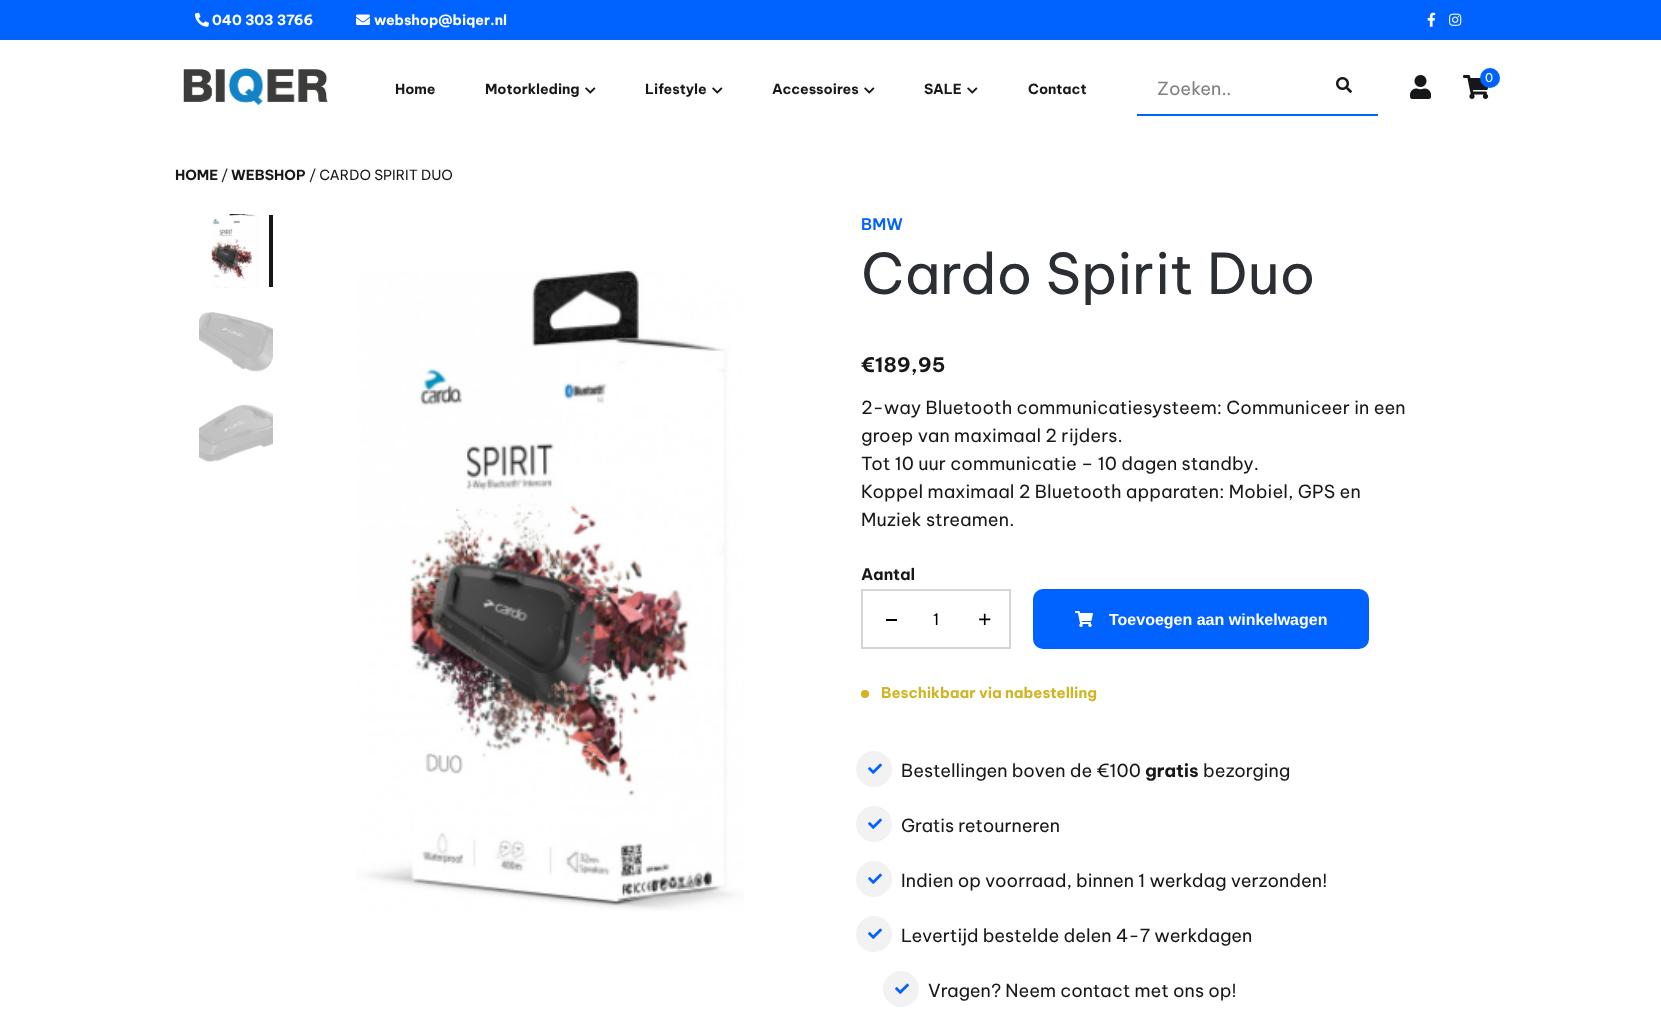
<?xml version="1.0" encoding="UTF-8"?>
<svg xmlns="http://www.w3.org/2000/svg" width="1661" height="1013">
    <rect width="100%" height="100%" fill="#FFFFFF"/>
    <rect x="0" y="0" width="1661" height="40" fill="#0062FF"/>
    <image x="195" y="12" width="14" height="15" href="img_01.png"/>
    <text x="212" y="25" font-family="Be Vietnam Pro" font-size="14" font-weight="700" fill="#FFFFFF">040 303 3766</text>
    <image x="356" y="14" width="14" height="11" href="img_02.png"/>
    <text x="374" y="25" font-family="Be Vietnam Pro" font-size="14" font-weight="700" fill="#FFFFFF">webshop@biqer.nl</text>
    <image x="1427" y="12" width="9" height="15" href="img_03.png"/>
    <image x="1449" y="13" width="13" height="13" href="img_04.png"/>
    <image x="183" y="68" width="146" height="38" href="img_05.png"/>
    <text x="395" y="94" font-family="Be Vietnam Pro" font-size="14" font-weight="700" fill="#1A171A">Home</text>
    <text x="485" y="94" font-family="Be Vietnam Pro" font-size="14" font-weight="700" fill="#1A171A">Motorkleding</text>
    <image x="585" y="87" width="11" height="7" href="img_06.png"/>
    <text x="645" y="94" font-family="Be Vietnam Pro" font-size="14" font-weight="700" fill="#1A171A">Lifestyle</text>
    <image x="712" y="87" width="11" height="7" href="img_06.png"/>
    <text x="772" y="94" font-family="Be Vietnam Pro" font-size="14" font-weight="700" fill="#1A171A">Accessoires</text>
    <image x="864" y="87" width="11" height="7" href="img_06.png"/>
    <text x="924" y="94" font-family="Be Vietnam Pro" font-size="14" font-weight="700" fill="#1A171A">SALE</text>
    <image x="967" y="87" width="11" height="7" href="img_06.png"/>
    <text x="1028" y="94" font-family="Be Vietnam Pro" font-size="14" font-weight="700" fill="#1A171A">Contact</text>
    <rect x="1137" y="114" width="241" height="2" fill="#0062FF"/>
    <text x="1157" y="95" font-family="Be Vietnam Pro" font-size="18" fill="#808184">Zoeken..</text>
    <image x="1336" y="77" width="16" height="16" href="img_07.png"/>
    <image x="1410" y="75" width="21" height="24" href="img_08.png"/>
    <image x="1463" y="75" width="26" height="24" href="img_09.png"/>
    <circle cx="1490" cy="78" r="10" fill="#0062FF"/>
    <text x="1485" y="82" font-family="Be Vietnam Pro" font-size="12" fill="#FFFFFF">0</text>
    <text x="175" y="180" font-family="Be Vietnam Pro" font-size="14" font-weight="700" fill="#1A171A">HOME</text>
    <text x="221" y="180" font-family="Be Vietnam Pro" font-size="14" fill="#1A171A">/</text>
    <text x="231" y="180" font-family="Be Vietnam Pro" font-size="14" font-weight="700" fill="#1A171A">WEBSHOP</text>
    <text x="309" y="180" font-family="Be Vietnam Pro" font-size="14" fill="#1A171A">/ CARDO SPIRIT DUO</text>
    <rect x="269" y="215" width="4" height="72" fill="#16171A"/>
    <image x="211" y="214" width="47" height="74" href="img_10.png"/>
    <image x="199" y="312" width="74" height="60" href="img_11.png"/>
    <image x="199" y="404" width="74" height="58" href="img_12.png"/>
    <image x="356" y="270" width="388" height="641" href="img_13.png"/>
    <text x="861" y="230" font-family="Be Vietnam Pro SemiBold" font-size="16" font-weight="600" fill="#0062FF">BMW</text>
    <text x="861" y="294" font-family="Be Vietnam Pro" font-size="56" fill="#2B2E33">Cardo Spirit Duo</text>
    <text x="861" y="372" font-family="Be Vietnam Pro" font-size="20" font-weight="700" fill="#1A171A">€189,95</text>
    <text font-family="Be Vietnam Pro" font-size="18" letter-spacing="0.1" fill="#1A171A">
        <tspan x="861" y="414">2-way Bluetooth communicatiesysteem: Communiceer in een</tspan>
        <tspan x="861" y="442">groep van maximaal 2 rijders.</tspan>
        <tspan x="861" y="470">Tot 10 uur communicatie – 10 dagen standby.</tspan>
        <tspan x="861" y="498">Koppel maximaal 2 Bluetooth apparaten: Mobiel, GPS en</tspan>
        <tspan x="861" y="526">Muziek streamen.</tspan>
    </text>
    <text x="861" y="580" font-family="Be Vietnam Pro" font-size="16" font-weight="700" fill="#1A171A">Aantal</text>
    <rect x="862" y="590" width="148" height="58" fill="none" stroke="#D4D5DA" stroke-width="2"/>
    <rect x="886" y="619" width="11" height="2" fill="#000000"/>
    <text x="933" y="625" font-family="Be Vietnam Pro" font-size="16" fill="#000000">1</text>
    <text x="978" y="627" font-family="Liberation Sans" font-size="23" fill="#000000">+</text>
    <rect x="1034" y="590" width="334" height="58" rx="9" fill="#0062FF" stroke="#0062FF" stroke-width="2"/>
    <image x="1075" y="611" width="18" height="16" href="img_14.png"/>
    <text x="1109" y="625" font-family="Liberation Sans" font-size="16" font-weight="700" fill="#FFFFFF">Toevoegen aan winkelwagen</text>
    <circle cx="865" cy="694" r="4" fill="#D1B421"/>
    <text x="881" y="698" font-family="Be Vietnam Pro" font-size="14.75" font-weight="700" fill="#D1B421">Beschikbaar via nabestelling</text>
    <circle cx="874" cy="769" r="16" fill="#F2F2F2" stroke="#F2F2F2" stroke-width="4"/>
    <image x="868" y="763" width="14" height="11" href="img_15.png"/>
    <text x="901" y="777" font-family="Be Vietnam Pro" font-size="18" fill="#1A171A">Bestellingen boven de €100</text>
    <text x="1145" y="777" font-family="Be Vietnam Pro" font-size="18" font-weight="700" fill="#1A171A">gratis</text>
    <text x="1203" y="777" font-family="Be Vietnam Pro" font-size="18" fill="#1A171A">bezorging</text>
    <circle cx="874" cy="824" r="16" fill="#F2F2F2" stroke="#F2F2F2" stroke-width="4"/>
    <image x="868" y="818" width="14" height="11" href="img_15.png"/>
    <text x="901" y="832" font-family="Be Vietnam Pro" font-size="18" fill="#1A171A">Gratis retourneren</text>
    <circle cx="874" cy="879" r="16" fill="#F2F2F2" stroke="#F2F2F2" stroke-width="4"/>
    <image x="868" y="873" width="14" height="11" href="img_15.png"/>
    <text x="901" y="887" font-family="Be Vietnam Pro" font-size="18" fill="#1A171A">Indien op voorraad, binnen 1 werkdag verzonden!</text>
    <circle cx="874" cy="934" r="16" fill="#F2F2F2" stroke="#F2F2F2" stroke-width="4"/>
    <image x="868" y="928" width="14" height="11" href="img_15.png"/>
    <text x="901" y="942" font-family="Be Vietnam Pro" font-size="18" fill="#1A171A">Levertijd bestelde delen 4-7 werkdagen</text>
    <circle cx="901" cy="989" r="16" fill="#F2F2F2" stroke="#F2F2F2" stroke-width="4"/>
    <image x="895" y="983" width="14" height="11" href="img_15.png"/>
    <text x="928" y="997" font-family="Be Vietnam Pro" font-size="18" fill="#1A171A">Vragen? Neem contact met ons op!</text>
</svg>
